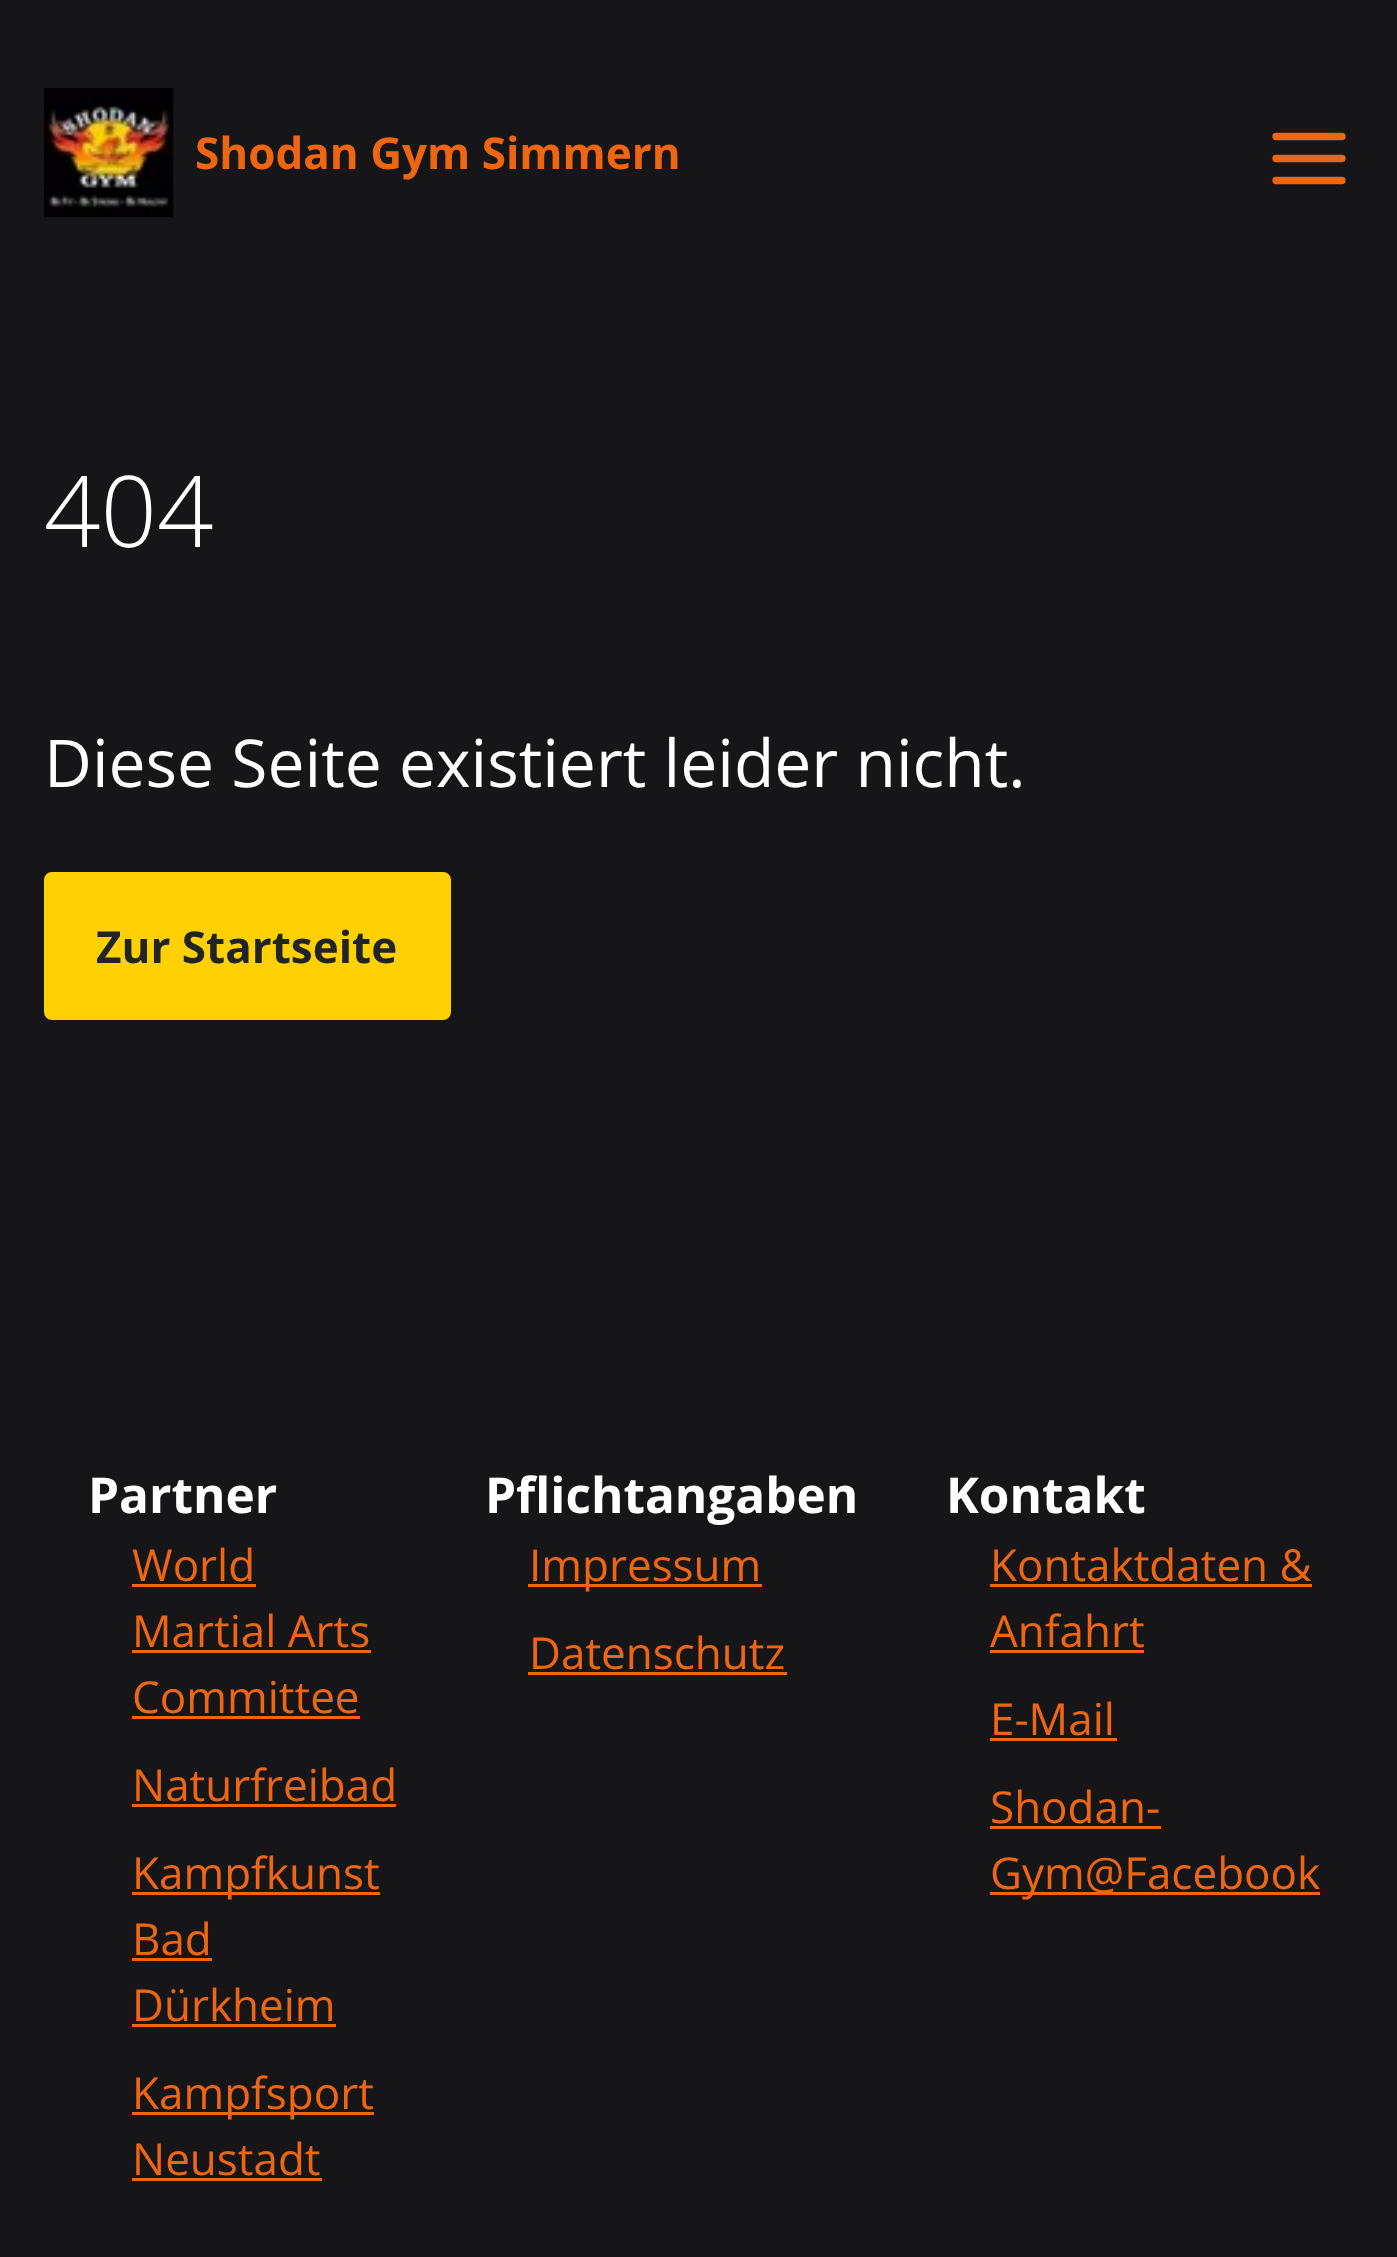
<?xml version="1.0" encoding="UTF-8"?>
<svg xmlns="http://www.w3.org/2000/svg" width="1397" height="2257">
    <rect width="100%" height="100%" fill="#161618"/>
    <image x="44" y="88" width="130" height="130" href="img_01.png"/>
    <text x="195" y="169" font-family="Open Sans" font-size="44" font-weight="700" fill="#EE6611">Shodan Gym Simmern</text>
    <path d="M 1276 136.5 H 1342 M 1276 158.5 H 1342 M 1276 180.5 H 1342" fill="none" stroke="#EE6611" stroke-width="7.3" stroke-linecap="round" stroke-linejoin="round"/>
    <text x="44" y="547" font-family="Open Sans" font-size="99" font-weight="300" fill="#FFFFFF">404</text>
    <text x="44" y="787" font-family="Open Sans" font-size="66" fill="#FFFFFF">Diese Seite existiert leider nicht.</text>
    <rect x="48" y="876" width="399" height="140" rx="4" fill="#FFD105" stroke="#FFD105" stroke-width="8"/>
    <text x="96" y="963" font-family="Open Sans" font-size="44" font-weight="700" fill="#202427">Zur Startseite</text>
    <text x="88" y="1513" font-family="Open Sans" font-size="49.5" font-weight="700" fill="#FFFFFF">Partner</text>
    <text x="132" y="1581" font-family="Open Sans" font-size="44" fill="#EE6611">World</text>
    <rect x="132" y="1584" width="124" height="3" fill="#EE6611"/>
    <text x="132" y="1647" font-family="Open Sans" font-size="44" fill="#EE6611">Martial Arts</text>
    <rect x="132" y="1650" width="239" height="3" fill="#EE6611"/>
    <text x="132" y="1713" font-family="Open Sans" font-size="44" fill="#EE6611">Committee</text>
    <rect x="132" y="1716" width="228" height="3" fill="#EE6611"/>
    <text x="132" y="1801" font-family="Open Sans" font-size="44" fill="#EE6611">Naturfreibad</text>
    <rect x="132" y="1804" width="264" height="3" fill="#EE6611"/>
    <rect x="132" y="1892" width="248" height="3" fill="#EE6611"/>
    <text font-family="Open Sans" font-size="44" fill="#EE6611">
        <tspan x="132" y="1889">Kampfkunst</tspan>
        <tspan x="132" y="1955">Bad</tspan>
    </text>
    <rect x="132" y="1958" width="80" height="3" fill="#EE6611"/>
    <text x="132" y="2021" font-family="Open Sans" font-size="44" fill="#EE6611">Dürkheim</text>
    <rect x="132" y="2024" width="204" height="3" fill="#EE6611"/>
    <rect x="132" y="2112" width="242" height="3" fill="#EE6611"/>
    <text font-family="Open Sans" font-size="44" fill="#EE6611">
        <tspan x="132" y="2109">Kampfsport</tspan>
        <tspan x="132" y="2175">Neustadt</tspan>
    </text>
    <rect x="132" y="2178" width="190" height="3" fill="#EE6611"/>
    <text x="485" y="1513" font-family="Open Sans" font-size="49.5" font-weight="700" fill="#FFFFFF">Pflichtangaben</text>
    <rect x="528" y="1584" width="234" height="3" fill="#EE6611"/>
    <text x="529" y="1581" font-family="Open Sans" font-size="44" fill="#EE6611">Impressum</text>
    <text x="529" y="1669" font-family="Open Sans" font-size="44" fill="#EE6611">Datenschutz</text>
    <rect x="528" y="1672" width="259" height="3" fill="#EE6611"/>
    <text x="946" y="1513" font-family="Open Sans" font-size="49.5" font-weight="700" fill="#FFFFFF">Kontakt</text>
    <text x="990" y="1581" font-family="Open Sans" font-size="44" fill="#EE6611">Kontaktdaten &amp;</text>
    <rect x="990" y="1584" width="322" height="3" fill="#EE6611"/>
    <text x="990" y="1647" font-family="Open Sans" font-size="44" fill="#EE6611">Anfahrt</text>
    <rect x="990" y="1650" width="154" height="3" fill="#EE6611"/>
    <text x="990" y="1735" font-family="Open Sans" font-size="44" fill="#EE6611">E-Mail</text>
    <rect x="990" y="1738" width="127" height="3" fill="#EE6611"/>
    <text x="990" y="1823" font-family="Open Sans" font-size="44" fill="#EE6611">Shodan-</text>
    <rect x="990" y="1826" width="171" height="3" fill="#EE6611"/>
    <rect x="990" y="1892" width="330" height="3" fill="#EE6611"/>
    <text x="990" y="1889" font-family="Open Sans" font-size="44" fill="#EE6611">Gym@Facebook</text>
</svg>
